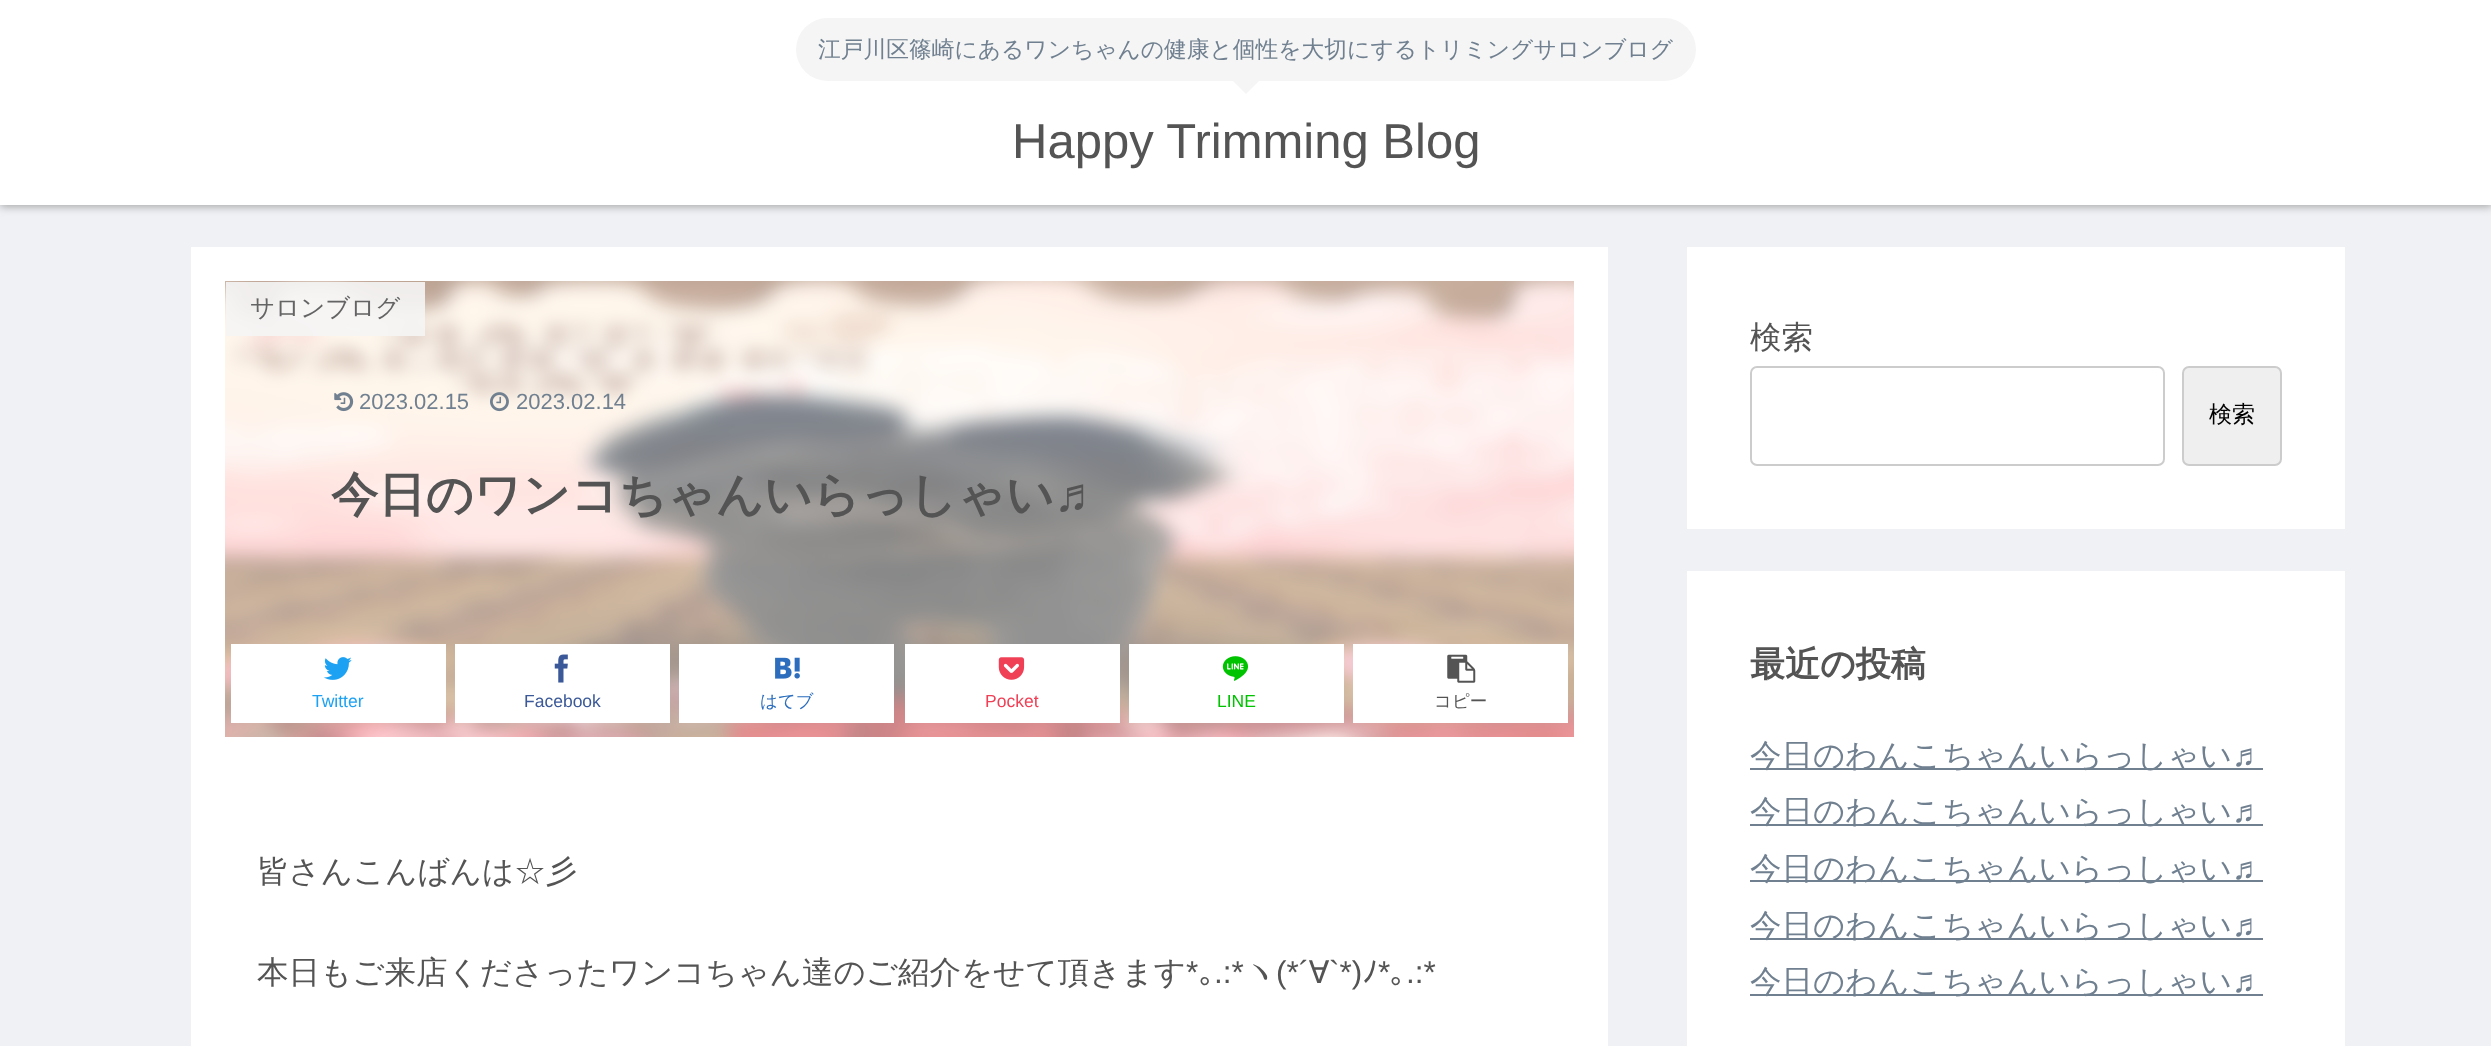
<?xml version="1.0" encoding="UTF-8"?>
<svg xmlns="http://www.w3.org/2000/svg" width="2491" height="1046">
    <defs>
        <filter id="blur1" x="-50%" y="-200%" width="200%" height="500%"><feGaussianBlur stdDeviation="4.5"/></filter>
    </defs>
    <rect width="100%" height="100%" fill="#EFF1F5"/>
    <rect x="0" y="2" width="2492" height="205" fill="#A9A9A9" filter="url(#blur1)"/>
    <rect x="0" y="0" width="2491" height="205" fill="#FFFFFF"/>
    <rect x="796" y="18" width="900" height="63" rx="31.5" fill="#F5F5F5"/>
    <text x="818" y="57" font-family="WenQuanYi Zen Hei" font-size="22.75" font-weight="500" fill="#708090">江戸川区篠崎にあるワンちゃんの健康と個性を大切にするトリミングサロンブログ</text>
    <path d="M 1220 68 H 1272 L 1246 94 Z" fill="#F5F5F5"/>
    <text x="1012" y="158" font-family="Liberation Sans" font-size="49" fill="#545454">Happy Trimming Blog</text>
    <rect x="191" y="247" width="1417" height="799" fill="#FFFFFF"/>
    <image x="225" y="281" width="1349" height="456" href="img_01.png"/>
    <rect x="226" y="282" width="199" height="54" fill="#F5F5F5" fill-opacity="0.9"/>
    <text x="250" y="316" font-family="WenQuanYi Zen Hei" font-size="24.5" font-weight="500" fill="#646464">サロンブログ</text>
    <image x="334" y="392" width="20" height="20" href="img_02.png"/>
    <text x="359" y="409" font-family="Liberation Sans" font-size="22" fill="#708090">2023.02.15</text>
    <image x="490" y="392" width="19" height="20" href="img_03.png"/>
    <text x="516" y="409" font-family="Liberation Sans" font-size="22" fill="#708090">2023.02.14</text>
    <text x="331" y="511" font-family="WenQuanYi Zen Hei" font-size="47.25" font-weight="700" fill="#545454">今日のワンコちゃんいらっしゃい</text>
    <text x="1054" y="511" font-family="Liberation Sans" font-size="47.25" font-weight="700" fill="#545454">♬</text>
    <rect x="231" y="644" width="215" height="79" fill="#FFFFFF"/>
    <image x="324" y="657" width="28" height="23" href="img_04.png"/>
    <text x="312" y="707" font-family="Liberation Sans" font-size="17.5" fill="#1DA1F2">Twitter</text>
    <rect x="455" y="644" width="215" height="79" fill="#FFFFFF"/>
    <image x="554" y="654" width="14" height="29" href="img_05.png"/>
    <text x="524" y="707" font-family="Liberation Sans" font-size="17.5" fill="#3B5998">Facebook</text>
    <rect x="679" y="644" width="215" height="79" fill="#FFFFFF"/>
    <image x="775" y="657" width="25" height="22" href="img_06.png"/>
    <text x="760" y="707" font-family="WenQuanYi Zen Hei" font-size="17.5" font-weight="500" fill="#2C6EBD">はてブ</text>
    <rect x="905" y="644" width="215" height="79" fill="#FFFFFF"/>
    <image x="998" y="657" width="27" height="23" href="img_07.png"/>
    <text x="985" y="707" font-family="Liberation Sans" font-size="17.5" fill="#EF4056">Pocket</text>
    <rect x="1129" y="644" width="215" height="79" fill="#FFFFFF"/>
    <image x="1222" y="656" width="27" height="25" href="img_08.png"/>
    <text x="1217" y="707" font-family="Liberation Sans" font-size="17.5" fill="#00C300">LINE</text>
    <rect x="1353" y="644" width="215" height="79" fill="#FFFFFF"/>
    <image x="1447" y="654" width="29" height="29" href="img_09.png"/>
    <text x="1434" y="707" font-family="WenQuanYi Zen Hei" font-size="17.5" font-weight="500" fill="#545454">コピー</text>
    <text x="257" y="882" font-family="WenQuanYi Zen Hei" font-size="31.5" font-weight="500" fill="#545454">皆さんこんばんは☆彡</text>
    <text x="257" y="983" font-family="WenQuanYi Zen Hei" font-size="31.5" font-weight="500" fill="#545454">本日もご来店くださったワンコちゃん達のご紹介をせて頂きます</text>
    <text x="1186" y="983" font-family="Liberation Sans" font-size="31.5" fill="#545454">*</text>
    <text x="1214" y="983" font-family="Liberation Sans" font-size="31.5" fill="#545454">.:*</text>
    <text x="1244" y="983" font-family="WenQuanYi Zen Hei" font-size="31.5" font-weight="500" fill="#545454">ヽ</text>
    <text x="1276" y="983" font-family="Liberation Sans" font-size="31.5" fill="#545454">(*´</text>
    <text x="1309" y="983" font-family="WenQuanYi Zen Hei" font-size="31.5" font-weight="500" fill="#545454">∀︎</text>
    <text x="1329" y="983" font-family="Liberation Sans" font-size="31.5" fill="#545454">`*)</text>
    <text x="1362" y="983" font-family="IPAPGothic" font-size="31.5" fill="#545454">ﾉ</text>
    <text x="1378" y="983" font-family="Liberation Sans" font-size="31.5" fill="#545454">*</text>
    <text x="1406" y="983" font-family="Liberation Sans" font-size="31.5" fill="#545454">.:*</text>
    <text x="1199" y="983" font-family="IPAPGothic" font-size="31.5" fill="#545454">｡</text>
    <text x="1390" y="983" font-family="IPAPGothic" font-size="31.5" fill="#545454">｡</text>
    <rect x="1687" y="247" width="658" height="282" fill="#FFFFFF"/>
    <text x="1750" y="348" font-family="WenQuanYi Zen Hei" font-size="31.5" font-weight="500" fill="#545454">検索</text>
    <rect x="1751" y="367" width="413" height="98" rx="6" fill="none" stroke="#CCCCCC" stroke-width="2"/>
    <rect x="2183" y="367" width="98" height="98" rx="6" fill="#EFEFEF" stroke="#CCCCCC" stroke-width="2"/>
    <text x="2209" y="422" font-family="WenQuanYi Zen Hei" font-size="23" font-weight="500" fill="#000000">検索</text>
    <rect x="1687" y="571" width="658" height="475" fill="#FFFFFF"/>
    <text x="1750" y="676" font-family="WenQuanYi Zen Hei" font-size="35" font-weight="700" fill="#545454">最近の投稿</text>
    <rect x="1750" y="768" width="513" height="2" fill="#708090"/>
    <text x="1750" y="766" font-family="WenQuanYi Zen Hei" font-size="31.5" font-weight="500" fill="#708090">今日のわんこちゃんいらっしゃい</text>
    <text x="2232" y="766" font-family="Liberation Sans" font-size="31.5" fill="#708090">♬</text>
    <rect x="1750" y="824" width="513" height="2" fill="#708090"/>
    <text x="1750" y="822" font-family="WenQuanYi Zen Hei" font-size="31.5" font-weight="500" fill="#708090">今日のわんこちゃんいらっしゃい</text>
    <text x="2232" y="822" font-family="Liberation Sans" font-size="31.5" fill="#708090">♬</text>
    <rect x="1750" y="880" width="513" height="2" fill="#708090"/>
    <text x="1750" y="879" font-family="WenQuanYi Zen Hei" font-size="31.5" font-weight="500" fill="#708090">今日のわんこちゃんいらっしゃい</text>
    <text x="2232" y="879" font-family="Liberation Sans" font-size="31.5" fill="#708090">♬</text>
    <rect x="1750" y="938" width="513" height="2" fill="#708090"/>
    <text x="1750" y="936" font-family="WenQuanYi Zen Hei" font-size="31.5" font-weight="500" fill="#708090">今日のわんこちゃんいらっしゃい</text>
    <text x="2232" y="936" font-family="Liberation Sans" font-size="31.5" fill="#708090">♬</text>
    <rect x="1750" y="994" width="513" height="2" fill="#708090"/>
    <text x="1750" y="992" font-family="WenQuanYi Zen Hei" font-size="31.5" font-weight="500" fill="#708090">今日のわんこちゃんいらっしゃい</text>
    <text x="2232" y="992" font-family="Liberation Sans" font-size="31.5" fill="#708090">♬</text>
</svg>
